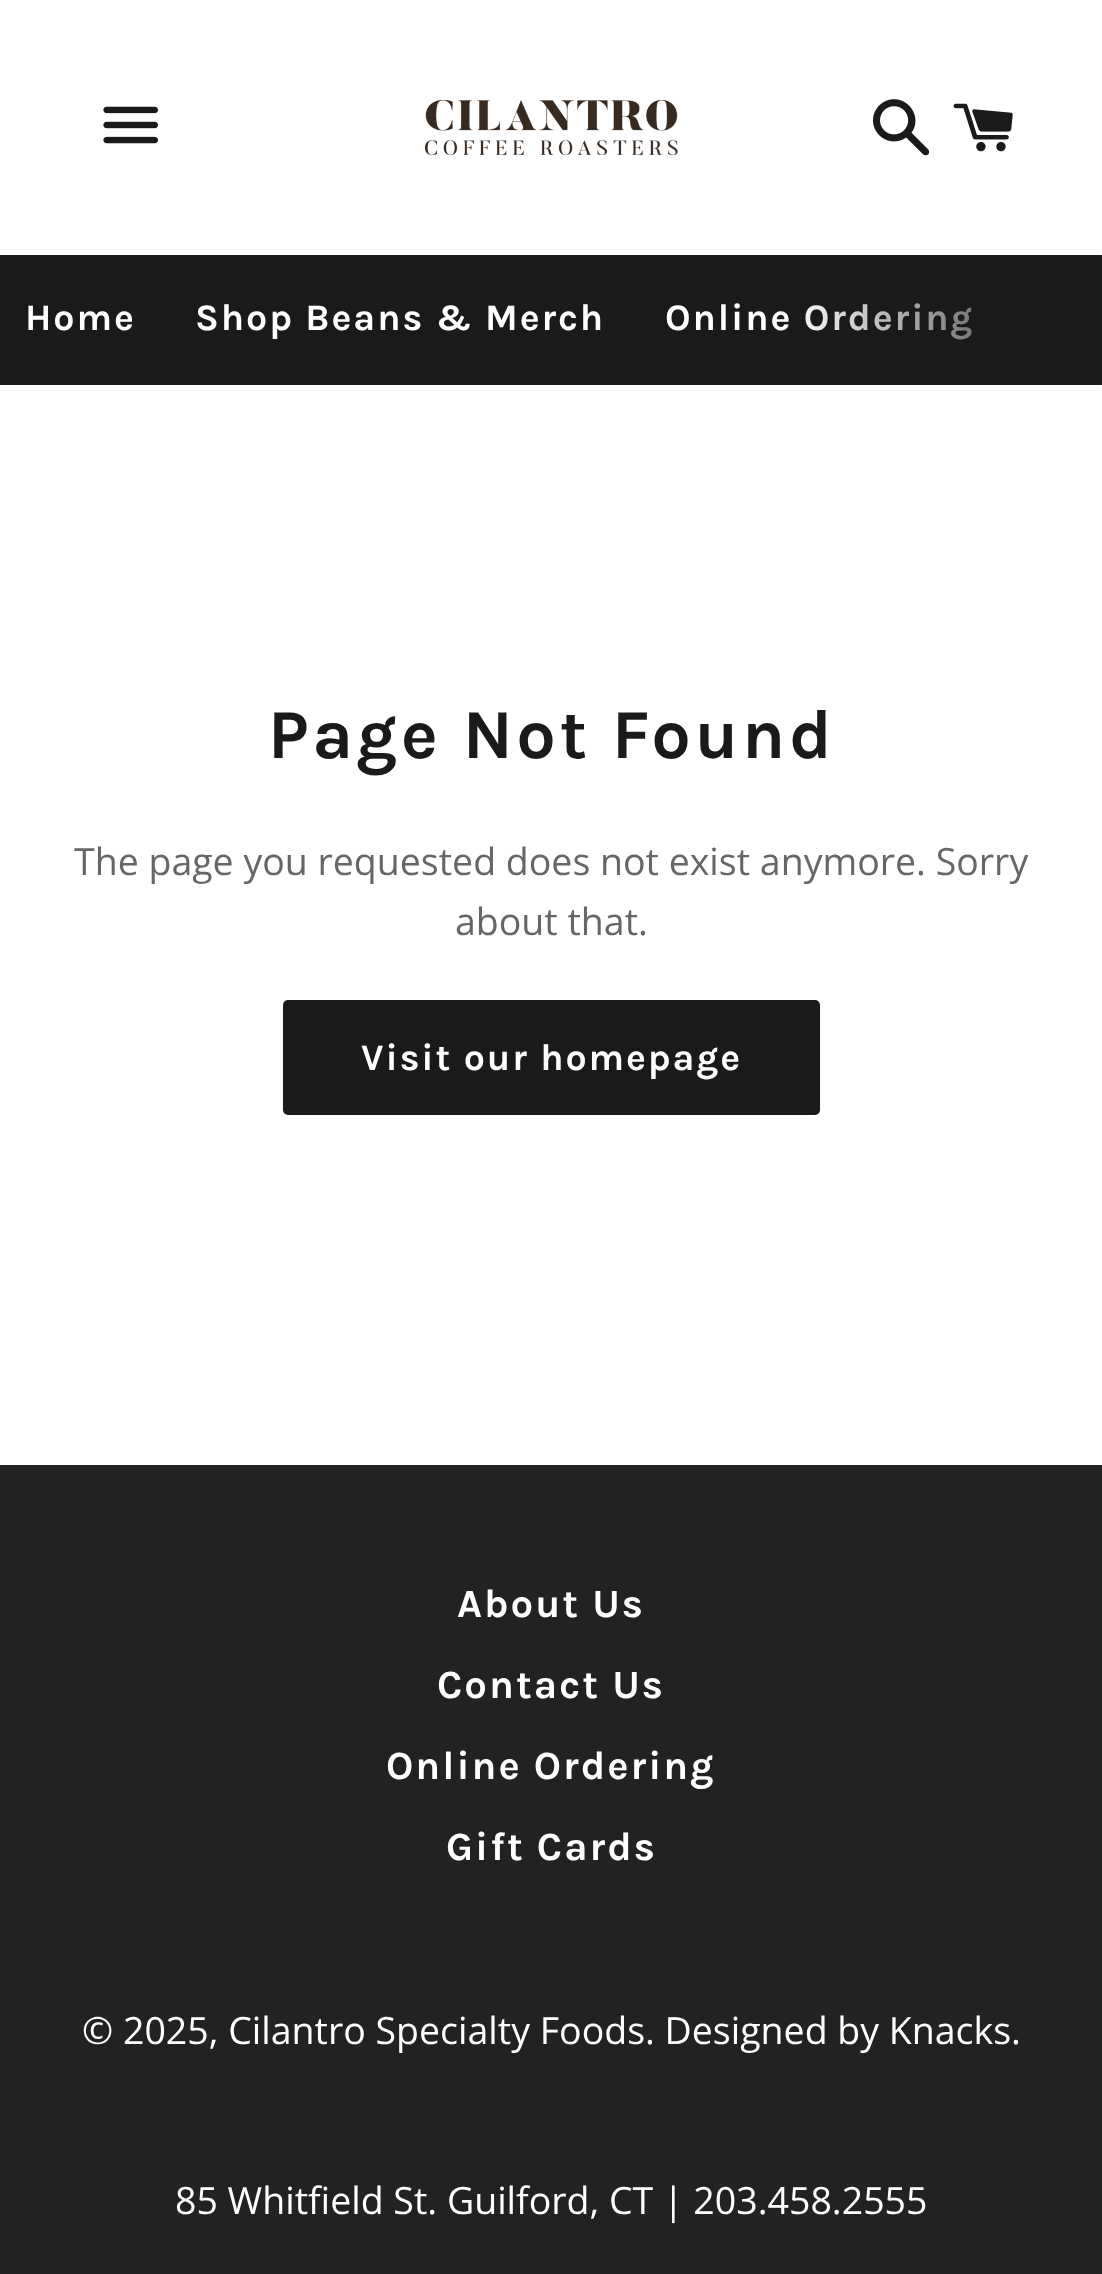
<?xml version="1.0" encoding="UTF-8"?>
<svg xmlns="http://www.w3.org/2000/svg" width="1102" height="2274">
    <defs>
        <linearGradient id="g1" gradientUnits="userSpaceOnUse" x1="790" y1="320" x2="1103" y2="320"><stop offset="0" stop-color="#1A1A1A" stop-opacity="0"/><stop offset="1" stop-color="#1A1A1A"/></linearGradient>
    </defs>
    <rect width="100%" height="100%" fill="#FFFFFF"/>
    <image x="103" y="106" width="55" height="38" href="img_01.png"/>
    <image x="425" y="100" width="253" height="55" href="img_02.png"/>
    <image x="873" y="99" width="57" height="57" href="img_03.png"/>
    <image x="953" y="103" width="60" height="49" href="img_04.png"/>
    <rect x="0" y="255" width="1101" height="130" fill="#1A1A1A"/>
    <text x="665" y="330" font-family="Karla" font-size="37.5" font-weight="700" letter-spacing="1.9" fill="#FFFFFF">Online Ordering</text>
    <rect x="805" y="255" width="297" height="130" fill="url(#g1)"/>
    <text x="25" y="330" font-family="Karla" font-size="37.5" font-weight="700" letter-spacing="1.9" fill="#FFFFFF">Home</text>
    <text x="195" y="330" font-family="Karla" font-size="37.5" font-weight="700" letter-spacing="1.9" fill="#FFFFFF">Shop Beans &amp; Merch</text>
    <text x="268" y="758" font-family="Karla" font-size="70" font-weight="700" letter-spacing="3.5" fill="#1A1A1A">Page Not Found</text>
    <text x="74" y="875" font-family="Open Sans" font-size="37.5" fill="#666666">The page you requested does not exist anymore. Sorry</text>
    <text x="455" y="935" font-family="Open Sans" font-size="37.5" fill="#666666">about that.</text>
    <rect x="283" y="1000" width="537" height="115" rx="5" fill="#1A1A1A"/>
    <text x="361" y="1070" font-family="Karla" font-size="37.5" font-weight="700" letter-spacing="1.9" fill="#FFFFFF">Visit our homepage</text>
    <rect x="0" y="1465" width="1102" height="809" fill="#222222"/>
    <text x="457" y="1617" font-family="Karla" font-size="40" font-weight="700" letter-spacing="2" fill="#FFFFFF">About Us</text>
    <text x="437" y="1698" font-family="Karla" font-size="40" font-weight="700" letter-spacing="2" fill="#FFFFFF">Contact Us</text>
    <text x="386" y="1779" font-family="Karla" font-size="40" font-weight="700" letter-spacing="2" fill="#FFFFFF">Online Ordering</text>
    <text x="446" y="1860" font-family="Karla" font-size="40" font-weight="700" letter-spacing="2" fill="#FFFFFF">Gift Cards</text>
    <text x="82" y="2044" font-family="Open Sans" font-size="37.5" fill="#FFFFFF">© 2025, Cilantro Specialty Foods. Designed by Knacks.</text>
    <text x="175" y="2214" font-family="Open Sans" font-size="37.5" fill="#FFFFFF">85 Whitfield St. Guilford, CT | 203.458.2555</text>
</svg>
